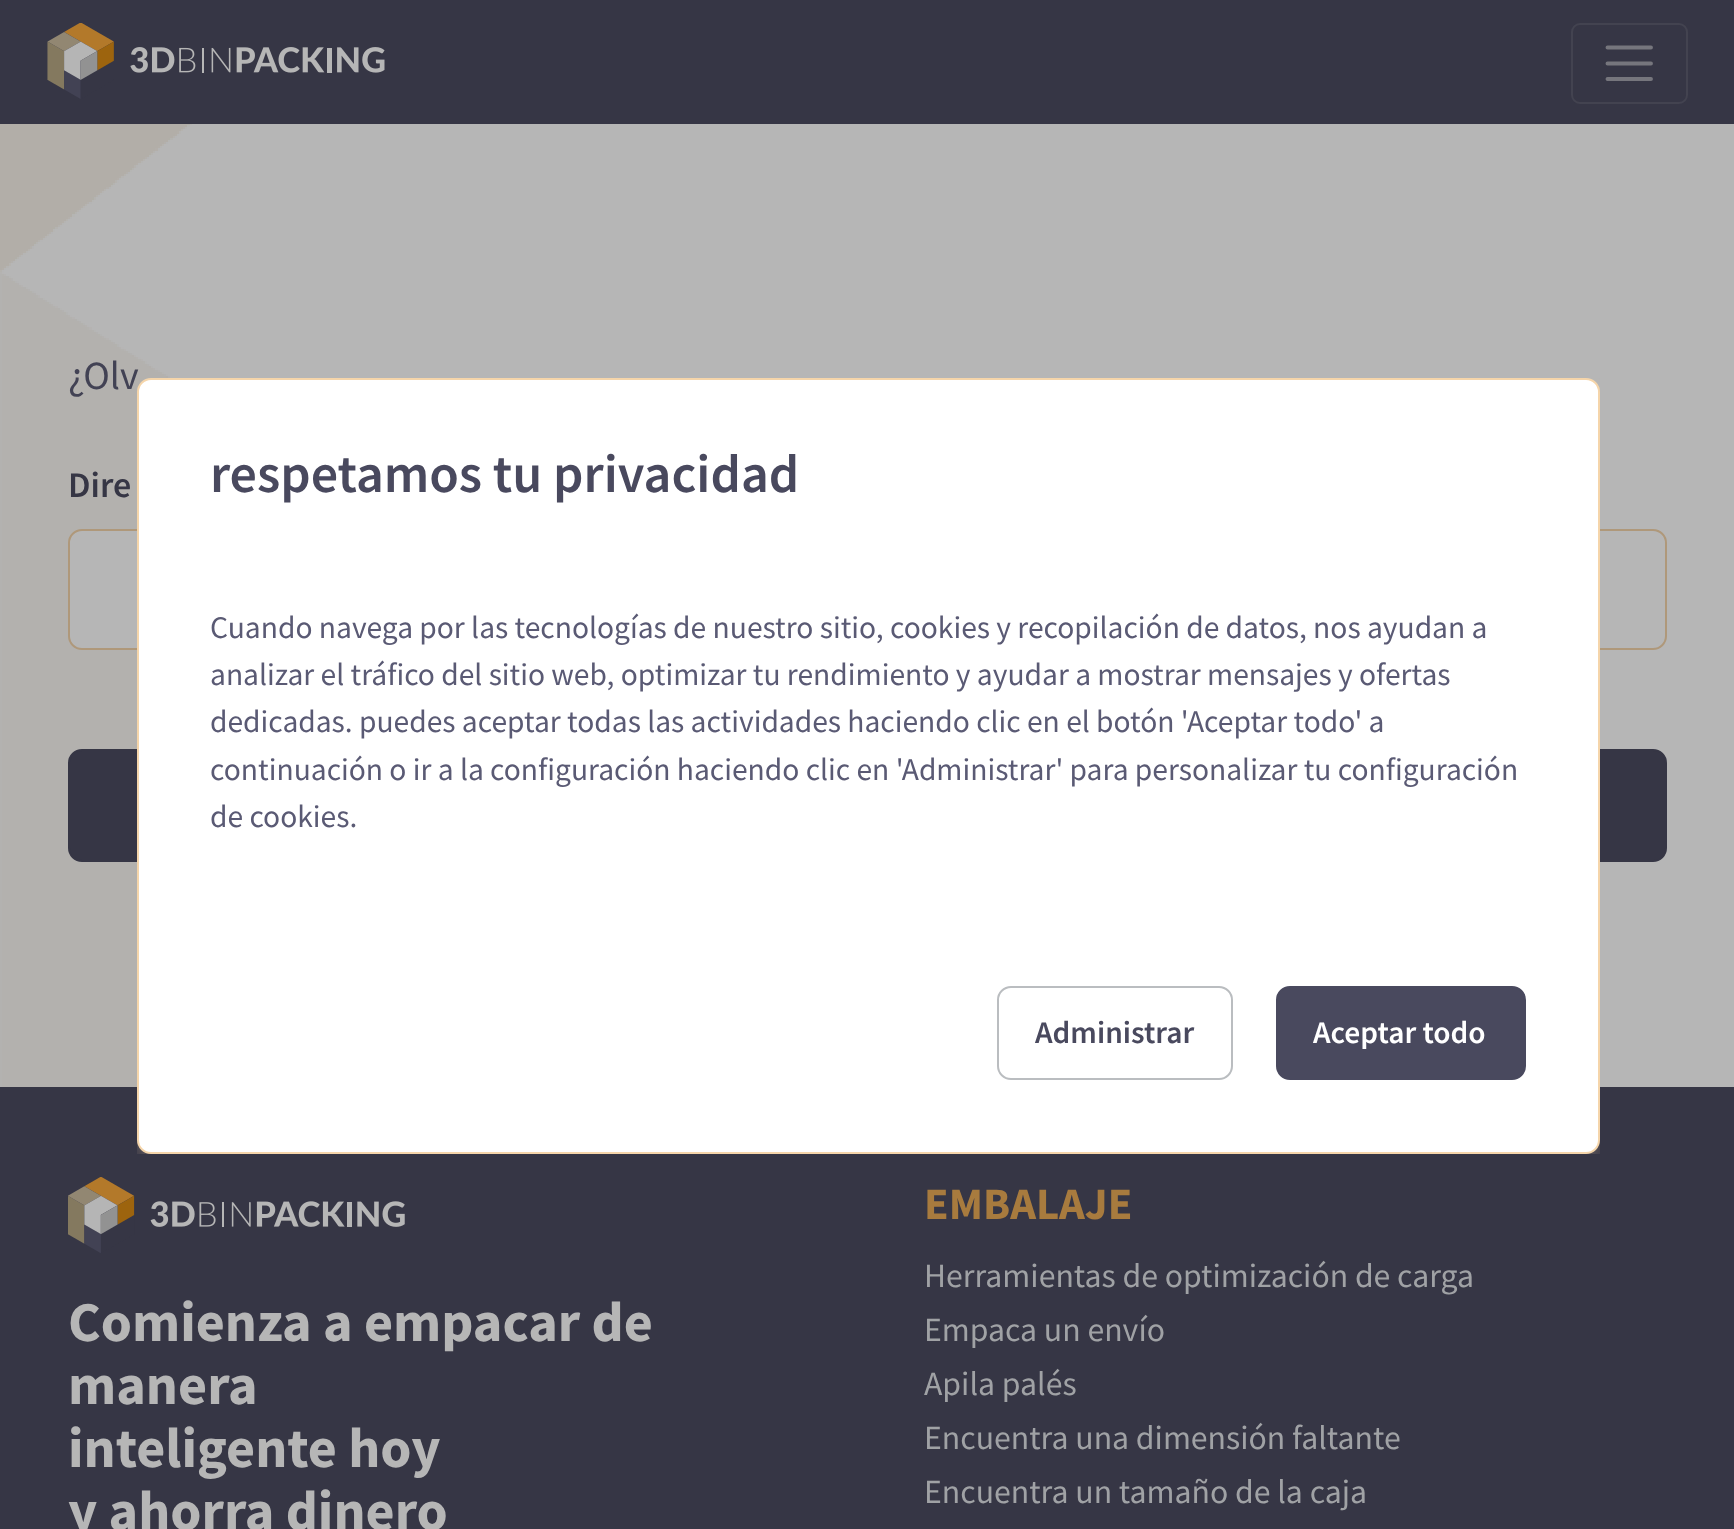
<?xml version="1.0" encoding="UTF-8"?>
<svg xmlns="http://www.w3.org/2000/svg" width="1734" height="1529">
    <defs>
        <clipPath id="clip1"><rect x="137" y="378" width="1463" height="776"/></clipPath>
        <filter id="blur1" x="-50%" y="-200%" width="200%" height="500%"><feGaussianBlur stdDeviation="13.5"/></filter>
    </defs>
    <rect width="100%" height="100%" fill="#B6B6B6"/>
    <image x="0" y="124" width="192" height="963" href="img_01.png"/>
    <rect x="0" y="0" width="1734" height="124" fill="#363645"/>
    <image x="47" y="23" width="338" height="76" href="img_02.png"/>
    <rect x="1572" y="24" width="115" height="79" rx="8" fill="none" stroke="#434350" stroke-width="2"/>
    <path d="M 1607.5 47.5 H 1651 M 1607.5 63.5 H 1651 M 1607.5 79 H 1651" fill="none" stroke="#76767D" stroke-width="3.9" stroke-linecap="round"/>
    <text x="68" y="389" font-family="Source Sans Pro" font-size="40" fill="#424254">¿Olv</text>
    <text x="68" y="497" font-family="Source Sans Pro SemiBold" font-size="36" font-weight="600" fill="#363645">Dire</text>
    <rect x="69" y="530" width="1597" height="119" rx="13" fill="#B6B6B6" stroke="#AF987A" stroke-width="2"/>
    <rect x="69" y="750" width="1597" height="111" rx="13" fill="#363645" stroke="#363645" stroke-width="2"/>
    <rect x="0" y="1087" width="1734" height="442" fill="#363645"/>
    <image x="68" y="1177" width="337" height="76" href="img_03.png"/>
    <g clip-path="url(#clip1)">
        <rect x="151" y="405" width="1435" height="749" fill="#F5D5AA" filter="url(#blur1)"/>
    </g>
    <rect x="138" y="379" width="1461" height="774" rx="13" fill="#FFFFFF" stroke="#F5D5AA" stroke-width="2"/>
    <text x="210" y="492" font-family="Source Sans Pro SemiBold" font-size="54" font-weight="600" fill="#49495E">respetamos tu privacidad</text>
    <text font-family="Source Sans Pro" font-size="31.5" fill="#5A5A74">
        <tspan x="210" y="638">Cuando navega por las tecnologías de nuestro sitio, cookies y recopilación de datos, nos ayudan a</tspan>
        <tspan x="210" y="685">analizar el tráfico del sitio web, optimizar tu rendimiento y ayudar a mostrar mensajes y ofertas</tspan>
        <tspan x="210" y="732">dedicadas. puedes aceptar todas las actividades haciendo clic en el botón 'Aceptar todo' a</tspan>
        <tspan x="210" y="780">continuación o ir a la configuración haciendo clic en 'Administrar' para personalizar tu configuración</tspan>
        <tspan x="210" y="827">de cookies.</tspan>
    </text>
    <rect x="998" y="987" width="234" height="92" rx="13" fill="none" stroke="#BABDC0" stroke-width="2"/>
    <text x="1035" y="1043" font-family="Source Sans Pro SemiBold" font-size="31.5" font-weight="600" fill="#49495E">Administrar</text>
    <rect x="1277" y="987" width="248" height="92" rx="13" fill="#49495E" stroke="#49495E" stroke-width="2"/>
    <text x="1313" y="1043" font-family="Source Sans Pro SemiBold" font-size="31.5" font-weight="600" fill="#FFFFFF">Aceptar todo</text>
    <text font-family="Source Sans Pro" font-size="56.25" font-weight="700" fill="#B6B6B6">
        <tspan x="68" y="1341">Comienza a empacar de</tspan>
        <tspan x="68" y="1404">manera</tspan>
        <tspan x="68" y="1467">inteligente hoy</tspan>
        <tspan x="68" y="1530">y ahorra dinero</tspan>
    </text>
    <text x="924" y="1219" font-family="Source Sans Pro" font-size="45" font-weight="700" fill="#A87B3E">EMBALAJE</text>
    <text font-family="Source Sans Pro" font-size="33.75" fill="#A0A2A5">
        <tspan x="924" y="1287">Herramientas de optimización de carga</tspan>
        <tspan x="924" y="1341">Empaca un envío</tspan>
        <tspan x="924" y="1395">Apila palés</tspan>
        <tspan x="924" y="1449">Encuentra una dimensión faltante</tspan>
        <tspan x="924" y="1503">Encuentra un tamaño de la caja</tspan>
    </text>
</svg>
